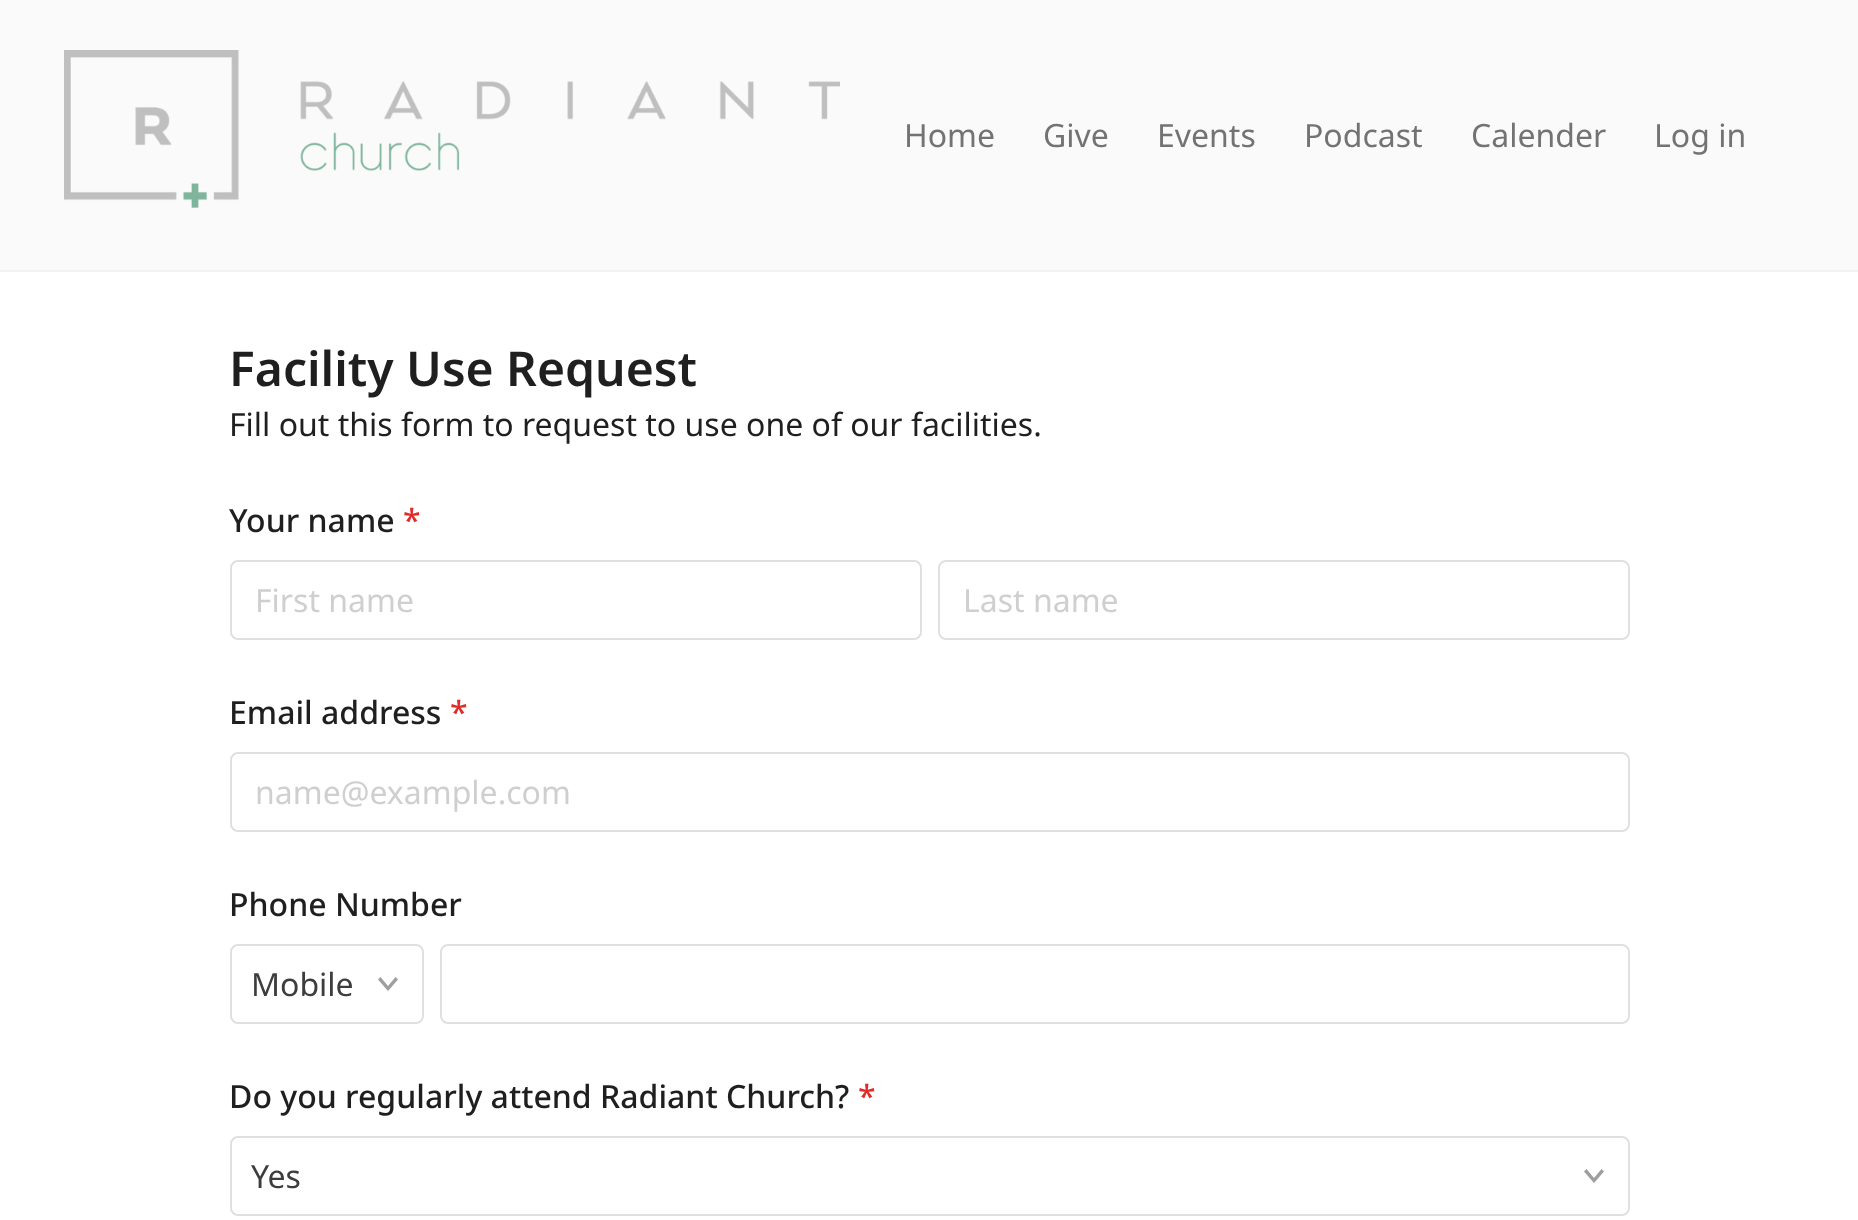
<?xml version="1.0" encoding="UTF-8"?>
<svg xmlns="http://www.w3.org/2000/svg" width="1858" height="1220">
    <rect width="100%" height="100%" fill="#FFFFFF"/>
    <rect x="0" y="0" width="1858" height="270" fill="#FAFAFA"/>
    <rect x="0" y="270" width="1858" height="2" fill="#F2F2F2"/>
    <image x="64" y="50" width="776" height="158" href="img_01.png"/>
    <text x="904" y="147" font-family="Noto Sans" font-size="32" fill="#737373">Home</text>
    <text x="1043" y="147" font-family="Noto Sans" font-size="32" fill="#737373">Give</text>
    <text x="1157" y="147" font-family="Noto Sans" font-size="32" fill="#737373">Events</text>
    <text x="1304" y="147" font-family="Noto Sans" font-size="32" fill="#737373">Podcast</text>
    <text x="1471" y="147" font-family="Noto Sans" font-size="32" fill="#737373">Calender</text>
    <text x="1654" y="147" font-family="Noto Sans" font-size="32" fill="#737373">Log in</text>
    <text x="229" y="386" font-family="Noto Sans" font-size="48" font-weight="600" fill="#1F1F1F">Facility Use Request</text>
    <text x="229" y="436" font-family="Noto Sans" font-size="32" fill="#1F1F1F">Fill out this form to request to use one of our facilities.</text>
    <text x="229" y="532" font-family="Noto Sans" font-size="32" font-weight="500" fill="#1F1F1F">Your name</text>
    <text x="403" y="532" font-family="Noto Sans" font-size="32" font-weight="500" fill="#E02C29">*</text>
    <rect x="231" y="561" width="690" height="78" rx="7" fill="none" stroke="#E0E0E0" stroke-width="2"/>
    <text x="255" y="612" font-family="Noto Sans" font-size="32" fill="#CFCFCF">First name</text>
    <rect x="939" y="561" width="690" height="78" rx="7" fill="none" stroke="#E0E0E0" stroke-width="2"/>
    <text x="963" y="612" font-family="Noto Sans" font-size="32" fill="#CFCFCF">Last name</text>
    <text x="229" y="724" font-family="Noto Sans" font-size="32" font-weight="500" fill="#1F1F1F">Email address</text>
    <text x="450" y="724" font-family="Noto Sans" font-size="32" font-weight="500" fill="#E02C29">*</text>
    <rect x="231" y="753" width="1398" height="78" rx="7" fill="none" stroke="#E0E0E0" stroke-width="2"/>
    <text x="255" y="804" font-family="Noto Sans" font-size="32" fill="#CFCFCF">name@example.com</text>
    <text x="229" y="916" font-family="Noto Sans" font-size="32" font-weight="500" fill="#1F1F1F">Phone Number</text>
    <path d="M 398 979.5 L 395.5 977 L 388 986 L 380.5 977 L 378 979.5 L 388 991 Z" fill="#9E9E9E"/>
    <rect x="231" y="945" width="192" height="78" rx="7" fill="none" stroke="#E0E0E0" stroke-width="2"/>
    <text x="251" y="996" font-family="Noto Sans" font-size="32" fill="#3D3D3D">Mobile</text>
    <rect x="441" y="945" width="1188" height="78" rx="7" fill="none" stroke="#E0E0E0" stroke-width="2"/>
    <text x="229" y="1108" font-family="Noto Sans" font-size="32" font-weight="500" fill="#1F1F1F">Do you regularly attend Radiant Church?</text>
    <text x="858" y="1108" font-family="Noto Sans" font-size="32" font-weight="500" fill="#E02C29">*</text>
    <path d="M 1604 1171.5 L 1601.5 1169 L 1594 1178 L 1586.5 1169 L 1584 1171.5 L 1594 1183 Z" fill="#9E9E9E"/>
    <rect x="231" y="1137" width="1398" height="78" rx="7" fill="none" stroke="#E0E0E0" stroke-width="2"/>
    <text x="251" y="1188" font-family="Noto Sans" font-size="32" fill="#3D3D3D">Yes</text>
</svg>
